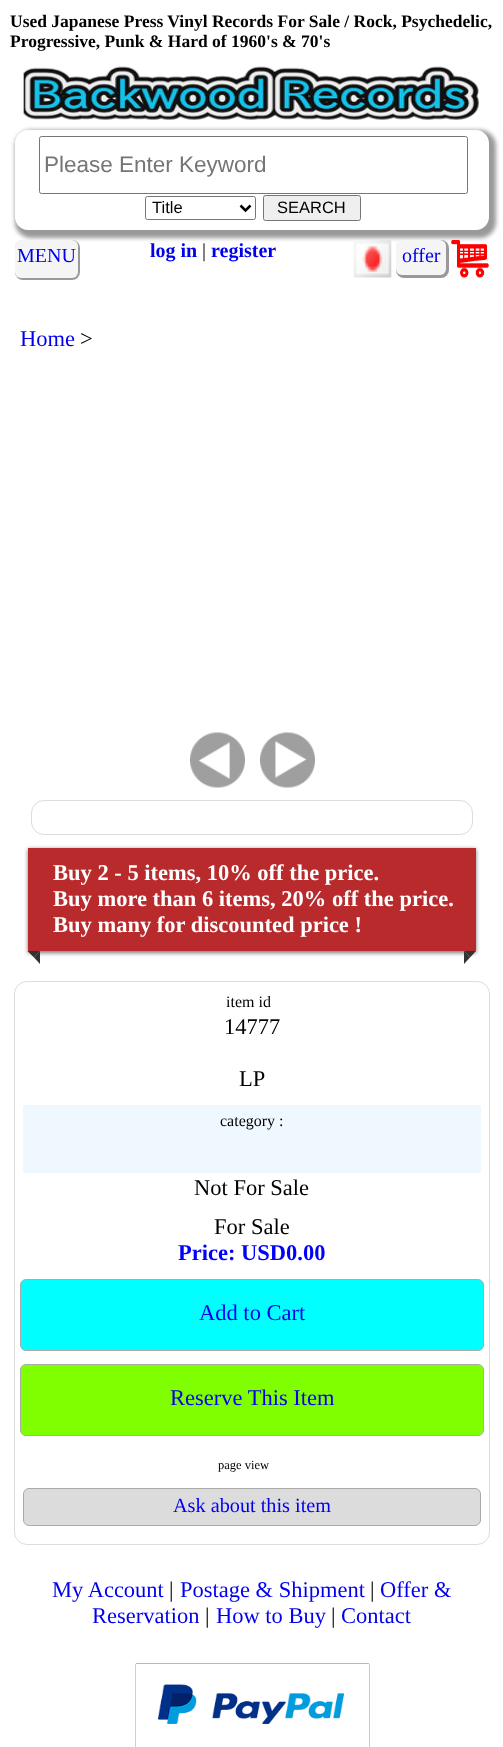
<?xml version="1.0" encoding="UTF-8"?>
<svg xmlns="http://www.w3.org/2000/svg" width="503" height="1747">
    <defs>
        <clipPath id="clip1"><path d="M 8 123 H 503 V 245 H 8 Z M 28 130 H 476 C 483 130 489 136 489 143 V 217 C 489 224 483 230 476 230 H 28 C 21 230 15 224 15 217 V 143 C 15 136 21 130 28 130 Z" clip-rule="evenodd"/></clipPath>
        <filter id="blur1" x="-50%" y="-200%" width="200%" height="500%"><feGaussianBlur stdDeviation="2"/></filter>
        <filter id="blur2" x="-50%" y="-200%" width="200%" height="500%"><feGaussianBlur stdDeviation="0.5"/></filter>
    </defs>
    <rect width="100%" height="100%" fill="#FFFFFF"/>
    <text font-family="Liberation Serif" font-size="17.5" font-weight="700" fill="#000000">
        <tspan x="10" y="27">Used Japanese Press Vinyl Records For Sale / Rock, Psychedelic,</tspan>
        <tspan x="10" y="47">Progressive, Punk &amp; Hard of 1960's &amp; 70's</tspan>
    </text>
    <image x="23" y="66" width="456" height="54" href="img_01.png"/>
    <g clip-path="url(#clip1)">
        <rect x="15" y="130" width="481" height="108" rx="16" fill="#000000" fill-opacity="0.4" filter="url(#blur1)"/>
    </g>
    <rect x="39.5" y="136.5" width="428" height="57" rx="2" fill="none" stroke="#767676"/>
    <text x="44" y="172" font-family="Liberation Sans" font-size="22.5" fill="#757575">Please Enter Keyword</text>
    <rect x="145.5" y="196.5" width="110" height="23" rx="2" fill="none" stroke="#767676"/>
    <path d="M 240.5 205.5 L 245.5 210.5 L 250.5 205.5" fill="none" stroke="#000000" stroke-width="2.5"/>
    <text x="152" y="213" font-family="Liberation Sans" font-size="16.5" fill="#000000">Title</text>
    <rect x="263.5" y="195.5" width="97" height="25" rx="2" fill="#EFEFEF" stroke="#767676"/>
    <text x="277" y="213" font-family="Liberation Sans" font-size="16.5" fill="#000000">SEARCH</text>
    <rect x="15" y="240" width="65" height="40" rx="8" fill="#000000" fill-opacity="0.4" filter="url(#blur2)"/>
    <rect x="15" y="240" width="63" height="38" rx="6" fill="#F5F5F5"/>
    <text x="17" y="262" font-family="Liberation Serif" font-size="20" fill="#0000EE">MENU</text>
    <text x="150" y="257" font-family="Liberation Serif" font-size="20" font-weight="700" fill="#0000EE">log in</text>
    <text x="202" y="257" font-family="Liberation Serif" font-size="20" fill="#000000">|</text>
    <text x="211" y="257" font-family="Liberation Serif" font-size="20" font-weight="700" fill="#0000EE">register</text>
    <image x="353" y="240" width="39" height="38" href="img_02.png"/>
    <image x="451" y="240" width="38" height="38" href="img_03.png"/>
    <rect x="396" y="240" width="53" height="38" rx="8" fill="#000000" fill-opacity="0.4" filter="url(#blur2)"/>
    <rect x="396" y="240" width="50" height="35" rx="6" fill="#F5F5F5"/>
    <text x="402" y="262" font-family="Liberation Serif" font-size="20" fill="#0000EE">offer</text>
    <text x="20" y="346" font-family="Liberation Serif" font-size="22.5" fill="#0000EE">Home</text>
    <text x="80" y="346" font-family="Liberation Serif" font-size="22.5" fill="#000000">&gt;</text>
    <image x="190" y="732" width="55" height="56" href="img_04.png"/>
    <image x="260" y="732" width="55" height="56" href="img_05.png"/>
    <rect x="31.5" y="800.5" width="441" height="34" rx="12.5" fill="none" stroke="#DCDCE1"/>
    <rect x="28" y="849" width="448" height="104" fill="#777777" filter="url(#blur1)"/>
    <rect x="28" y="848" width="448" height="103" fill="#B92A2C"/>
    <text font-family="Liberation Serif" font-size="22.5" font-weight="700" fill="#FFFFFF">
        <tspan x="53" y="880">Buy 2 - 5 items, 10% off the price.</tspan>
        <tspan x="53" y="906">Buy more than 6 items, 20% off the price.</tspan>
        <tspan x="53" y="932">Buy many for discounted price !</tspan>
    </text>
    <path d="M 27.5 951 H 40 L 34 957.5 Z" fill="#333333"/>
    <path d="M 40 951 V 964 L 34 957.5 Z" fill="#333333"/>
    <path d="M 464 951 H 476 L 470 957.5 Z" fill="#333333"/>
    <path d="M 464 964 V 951 L 470 957.5 Z" fill="#333333"/>
    <rect x="14.5" y="981.5" width="475" height="563" rx="12.5" fill="none" stroke="#DCDCE1"/>
    <text x="226" y="1007" font-family="Liberation Serif" font-size="16" fill="#000000">item id</text>
    <text x="224" y="1034" font-family="Liberation Serif" font-size="22.5" fill="#000000">14777</text>
    <text x="239" y="1086" font-family="Liberation Serif" font-size="22.5" fill="#000000">LP</text>
    <rect x="23" y="1105" width="458" height="68" rx="2.5" fill="#F0F8FF"/>
    <text x="220" y="1126" font-family="Liberation Serif" font-size="16" fill="#000000">category :</text>
    <text x="194" y="1195" font-family="Liberation Serif" font-size="22.5" fill="#000000">Not For Sale</text>
    <text x="214" y="1234" font-family="Liberation Serif" font-size="22.5" fill="#000000">For Sale</text>
    <text x="178" y="1260" font-family="Liberation Serif" font-size="22.5" font-weight="700" fill="#0000FF">Price: USD0.00</text>
    <rect x="20.5" y="1279.5" width="463" height="71" rx="5.5" fill="#00FFFF" stroke="#AAAAAA"/>
    <text x="199" y="1320" font-family="Liberation Serif" font-size="22.5" fill="#0000EE">Add to Cart</text>
    <rect x="20.5" y="1364.5" width="463" height="71" rx="5.5" fill="#80FF00" stroke="#AAAAAA"/>
    <text x="170" y="1405" font-family="Liberation Serif" font-size="22.5" fill="#0000EE">Reserve This Item</text>
    <text x="218" y="1469" font-family="Liberation Serif" font-size="12.5" fill="#000000">page view</text>
    <rect x="23.5" y="1488.5" width="457" height="37" rx="5.5" fill="#DCDCDC" stroke="#AAAAAA"/>
    <text x="173" y="1512" font-family="Liberation Serif" font-size="20.25" fill="#0000EE">Ask about this item</text>
    <text x="52" y="1597" font-family="Liberation Serif" font-size="22.5" fill="#0000EE">My Account</text>
    <text x="169" y="1597" font-family="Liberation Serif" font-size="22.5" fill="#000000">|</text>
    <text x="180" y="1597" font-family="Liberation Serif" font-size="22.5" fill="#0000EE">Postage &amp; Shipment</text>
    <text x="370" y="1597" font-family="Liberation Serif" font-size="22.5" fill="#000000">|</text>
    <text x="380" y="1597" font-family="Liberation Serif" font-size="22.5" fill="#0000EE">Offer &amp;</text>
    <text x="92" y="1623" font-family="Liberation Serif" font-size="22.5" fill="#0000EE">Reservation</text>
    <text x="205" y="1623" font-family="Liberation Serif" font-size="22.5" fill="#000000">|</text>
    <text x="216" y="1623" font-family="Liberation Serif" font-size="22.5" fill="#0000EE">How to Buy</text>
    <text x="331" y="1623" font-family="Liberation Serif" font-size="22.5" fill="#000000">|</text>
    <text x="341" y="1623" font-family="Liberation Serif" font-size="22.5" fill="#0000EE">Contact</text>
    <image x="135" y="1663" width="235" height="84" href="img_06.png"/>
</svg>
